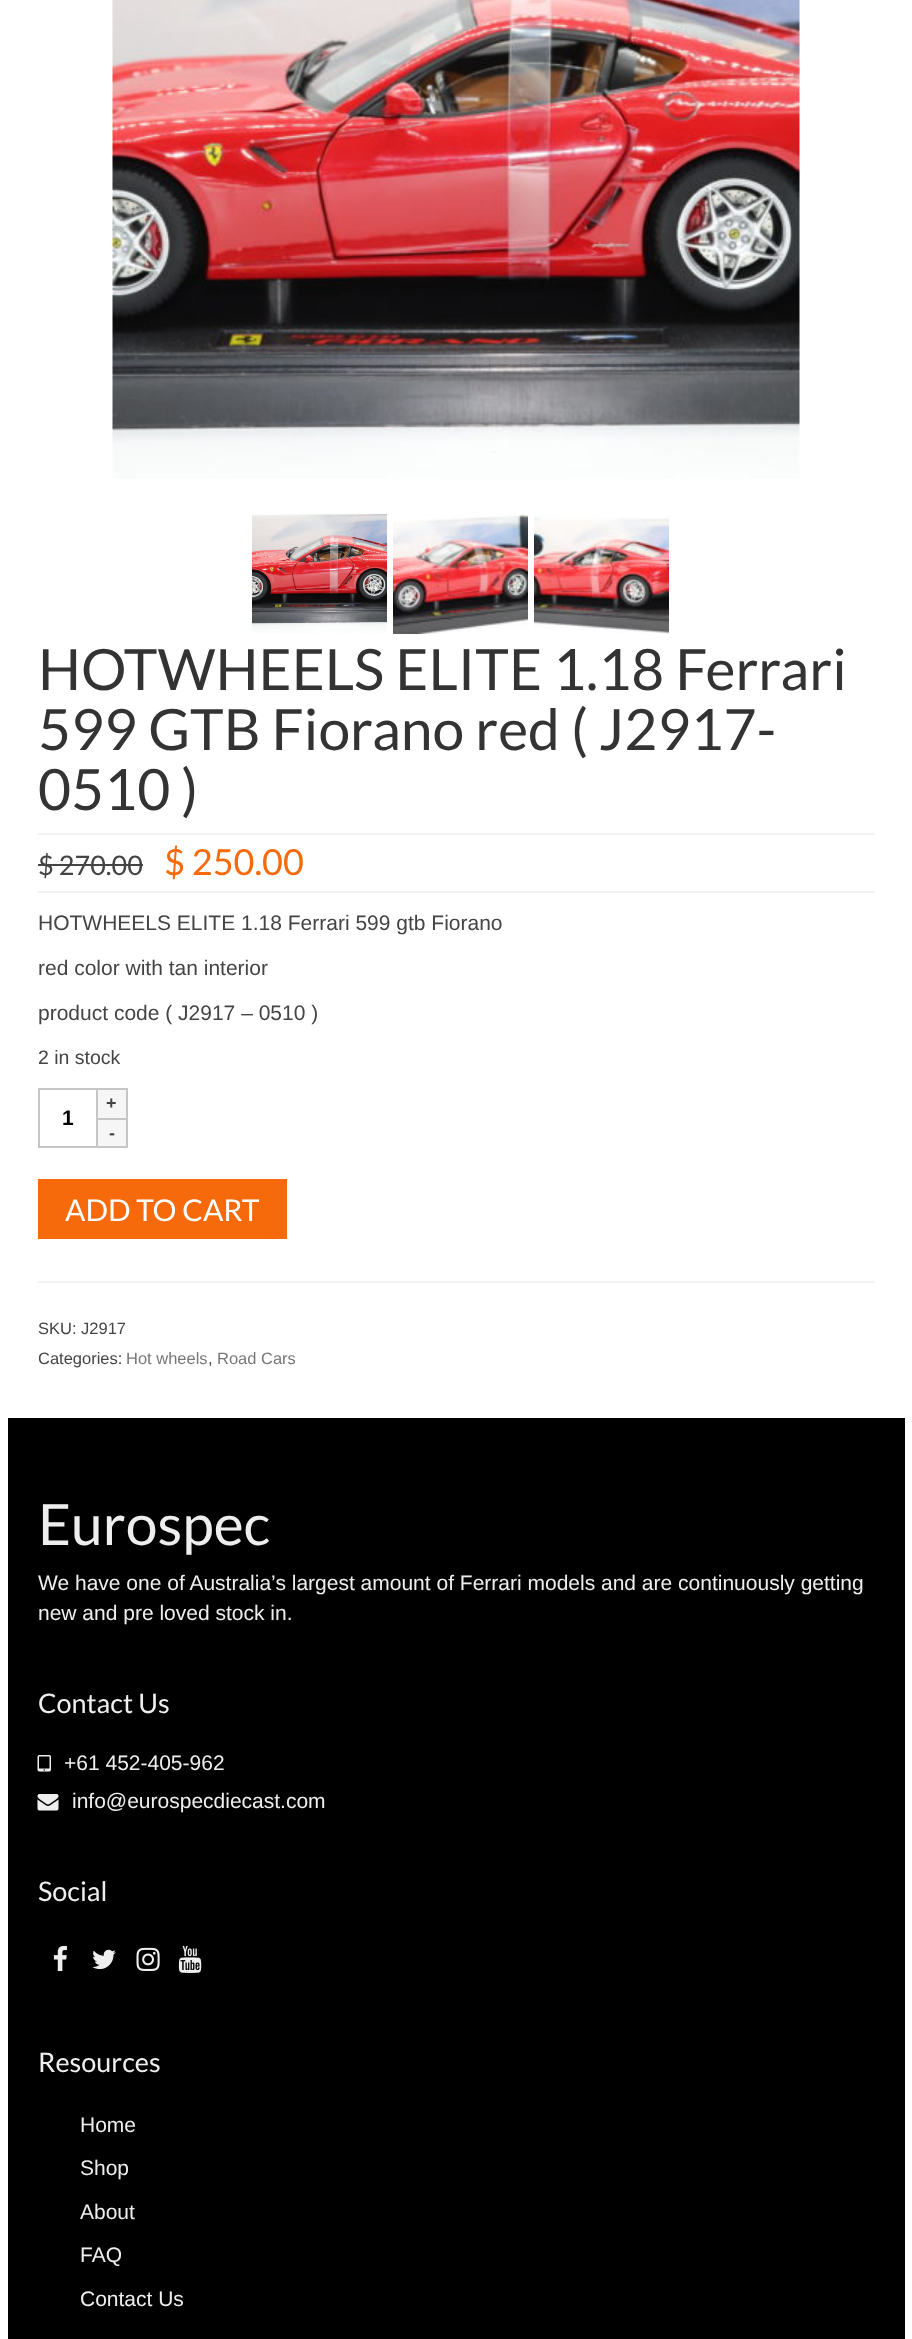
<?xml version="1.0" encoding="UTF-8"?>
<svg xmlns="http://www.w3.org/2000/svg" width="912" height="2339">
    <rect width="100%" height="100%" fill="#FFFFFF"/>
    <image x="112" y="0" width="688" height="479" href="img_01.png"/>
    <image x="252" y="513" width="135" height="120" href="img_02.png"/>
    <image x="393" y="514" width="135" height="120" href="img_03.png"/>
    <image x="534" y="516" width="135" height="118" href="img_04.png"/>
    <text font-family="Lato" font-size="57" fill="#333333">
        <tspan x="38" y="690">HOTWHEELS ELITE 1.18 Ferrari</tspan>
        <tspan x="38" y="750">599 GTB Fiorano red ( J2917-</tspan>
        <tspan x="38" y="810">0510 )</tspan>
    </text>
    <rect x="38" y="833" width="837" height="2" fill="#F2F2F2"/>
    <rect x="38" y="891" width="837" height="2" fill="#F2F2F2"/>
    <text x="38" y="875" font-family="Lato" font-size="27" fill="#444444">$ 270.00</text>
    <rect x="38" y="864" width="105" height="2" fill="#444444"/>
    <text x="164" y="875" font-family="Lato" font-size="36" fill="#F76A0C">$ 250.00</text>
    <text x="38" y="930" font-family="Liberation Sans" font-size="21" fill="#444444">HOTWHEELS ELITE 1.18 Ferrari 599 gtb Fiorano</text>
    <text x="38" y="975" font-family="Liberation Sans" font-size="21" fill="#444444">red color with tan interior</text>
    <text x="38" y="1020" font-family="Liberation Sans" font-size="21" fill="#444444">product code ( J2917 – 0510 )</text>
    <text x="38" y="1064" font-family="Liberation Sans" font-size="19.5" fill="#444444">2 in stock</text>
    <rect x="98" y="1090" width="28" height="28" fill="#F7F6F7"/>
    <rect x="98" y="1088" width="30" height="2" fill="#C6C6C6"/>
    <rect x="126" y="1088" width="2" height="30" fill="#C6C6C6"/>
    <text x="106" y="1109" font-family="Liberation Sans" font-size="18" font-weight="700" fill="#444444">+</text>
    <rect x="39" y="1089" width="58" height="58" fill="none" stroke="#C6C6C6" stroke-width="2"/>
    <text x="62" y="1125" font-family="Liberation Sans" font-size="21" font-weight="700" fill="#000000">1</text>
    <rect x="98" y="1120" width="28" height="26" fill="#F7F6F7"/>
    <rect x="98" y="1118" width="30" height="2" fill="#C6C6C6"/>
    <rect x="126" y="1118" width="2" height="30" fill="#C6C6C6"/>
    <rect x="98" y="1146" width="30" height="2" fill="#C6C6C6"/>
    <text x="109" y="1139" font-family="Liberation Sans" font-size="18" font-weight="700" fill="#444444">-</text>
    <rect x="38" y="1179" width="249" height="60" fill="#F76A0C"/>
    <text x="65" y="1221" font-family="Lato" font-size="30" fill="#FFFFFF">ADD TO CART</text>
    <rect x="38" y="1281" width="837" height="2" fill="#F2F2F2"/>
    <text font-family="Liberation Sans" font-size="16.5" fill="#444444">
        <tspan x="38" y="1334">SKU: J2917</tspan>
        <tspan x="38" y="1364">Categories:</tspan>
    </text>
    <text x="126" y="1364" font-family="Liberation Sans" font-size="16.5" fill="#777777">Hot wheels</text>
    <text x="208" y="1364" font-family="Liberation Sans" font-size="16.5" fill="#444444">,</text>
    <text x="217" y="1364" font-family="Liberation Sans" font-size="16.5" fill="#777777">Road Cars</text>
    <rect x="8" y="1418" width="897" height="921" fill="#000000"/>
    <text x="38" y="1545" font-family="Lato" font-size="57" fill="#EEEEEE">Eurospec</text>
    <text font-family="Liberation Sans" font-size="21" fill="#EEEEEE">
        <tspan x="38" y="1590">We have one of Australia’s largest amount of Ferrari models and are continuously getting</tspan>
        <tspan x="38" y="1620">new and pre loved stock in.</tspan>
    </text>
    <text x="38" y="1713" font-family="Lato" font-size="27" fill="#EEEEEE">Contact Us</text>
    <image x="37" y="1755" width="14" height="17" href="img_05.png"/>
    <text x="64" y="1770" font-family="Liberation Sans" font-size="21" fill="#EEEEEE">+61 452-405-962</text>
    <image x="37" y="1794" width="22" height="17" href="img_06.png"/>
    <text x="72" y="1808" font-family="Liberation Sans" font-size="21" fill="#EEEEEE">info@eurospecdiecast.com</text>
    <text x="38" y="1901" font-family="Lato" font-size="27" fill="#EEEEEE">Social</text>
    <image x="53" y="1945" width="14" height="26" href="img_07.png"/>
    <image x="92" y="1949" width="24" height="21" href="img_08.png"/>
    <image x="136" y="1947" width="24" height="24" href="img_09.png"/>
    <image x="178" y="1945" width="24" height="28" href="img_10.png"/>
    <text x="38" y="2072" font-family="Lato" font-size="27" fill="#EEEEEE">Resources</text>
    <text x="80" y="2132" font-family="Liberation Sans" font-size="21" fill="#EEEEEE">Home</text>
    <text x="80" y="2175" font-family="Liberation Sans" font-size="21" fill="#EEEEEE">Shop</text>
    <text x="80" y="2219" font-family="Liberation Sans" font-size="21" fill="#EEEEEE">About</text>
    <text x="80" y="2262" font-family="Liberation Sans" font-size="21" fill="#EEEEEE">FAQ</text>
    <text x="80" y="2306" font-family="Liberation Sans" font-size="21" fill="#EEEEEE">Contact Us</text>
</svg>
